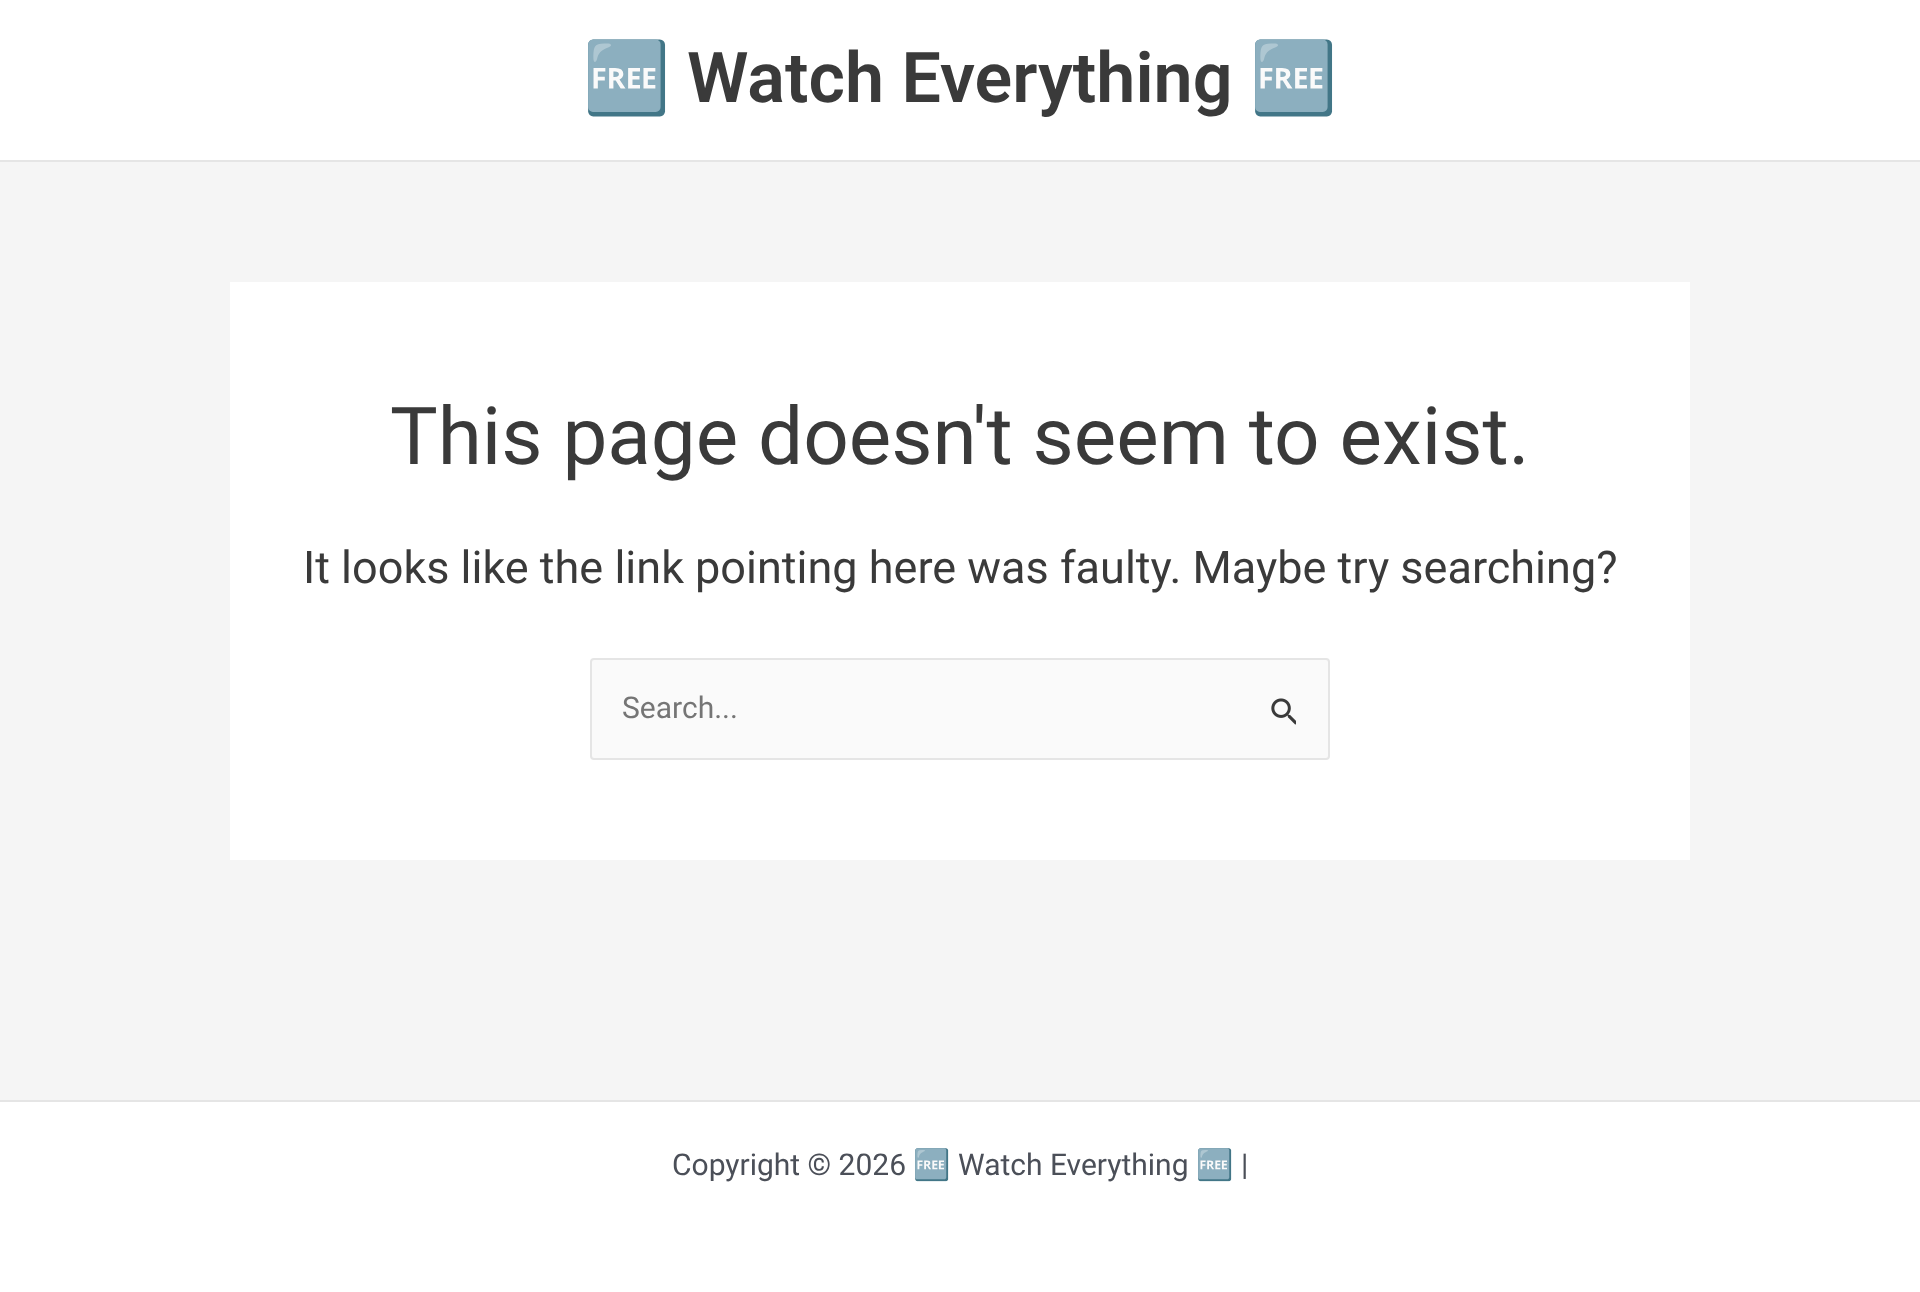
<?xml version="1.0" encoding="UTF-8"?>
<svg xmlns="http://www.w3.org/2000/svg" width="1920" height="1292">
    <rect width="100%" height="100%" fill="#F5F5F5"/>
    <rect x="0" y="0" width="1920" height="160" fill="#FFFFFF"/>
    <rect x="0" y="160" width="1920" height="2" fill="#E5E5E5"/>
    <text x="583" y="102" font-family="Noto Color Emoji" font-size="70" font-weight="700" fill="#3A3A3A">🆓</text>
    <text x="687" y="102" font-family="Roboto" font-size="70" font-weight="600" fill="#3A3A3A">Watch Everything</text>
    <text x="1250" y="102" font-family="Noto Color Emoji" font-size="70" font-weight="700" fill="#3A3A3A">🆓</text>
    <rect x="230" y="282" width="1460" height="578" fill="#FFFFFF"/>
    <text x="390" y="464" font-family="Roboto" font-size="80" fill="#3A3A3A">This page doesn't seem to exist.</text>
    <text x="303" y="583" font-family="Roboto" font-size="45" fill="#3A3A3A">It looks like the link pointing here was faulty. Maybe try searching?</text>
    <rect x="591" y="659" width="738" height="100" rx="3" fill="#FAFAFA" stroke="#E5E5E5" stroke-width="2"/>
    <text x="622" y="718" font-family="Roboto" font-size="30" fill="#757575">Search...</text>
    <image x="1271" y="698" width="25" height="27" href="img_01.png"/>
    <rect x="0" y="1102" width="1920" height="190" fill="#FFFFFF"/>
    <rect x="0" y="1100" width="1920" height="2" fill="#E5E5E5"/>
    <text x="672" y="1175" font-family="Roboto" font-size="30" fill="#4B4F58">Copyright © 2026</text>
    <text x="913" y="1175" font-family="Noto Color Emoji" font-size="30" fill="#4B4F58">🆓</text>
    <text x="958" y="1175" font-family="Roboto" font-size="30" fill="#4B4F58">Watch Everything</text>
    <text x="1196" y="1175" font-family="Noto Color Emoji" font-size="30" fill="#4B4F58">🆓</text>
    <text x="1241" y="1175" font-family="Roboto" font-size="30" fill="#4B4F58">|</text>
</svg>
